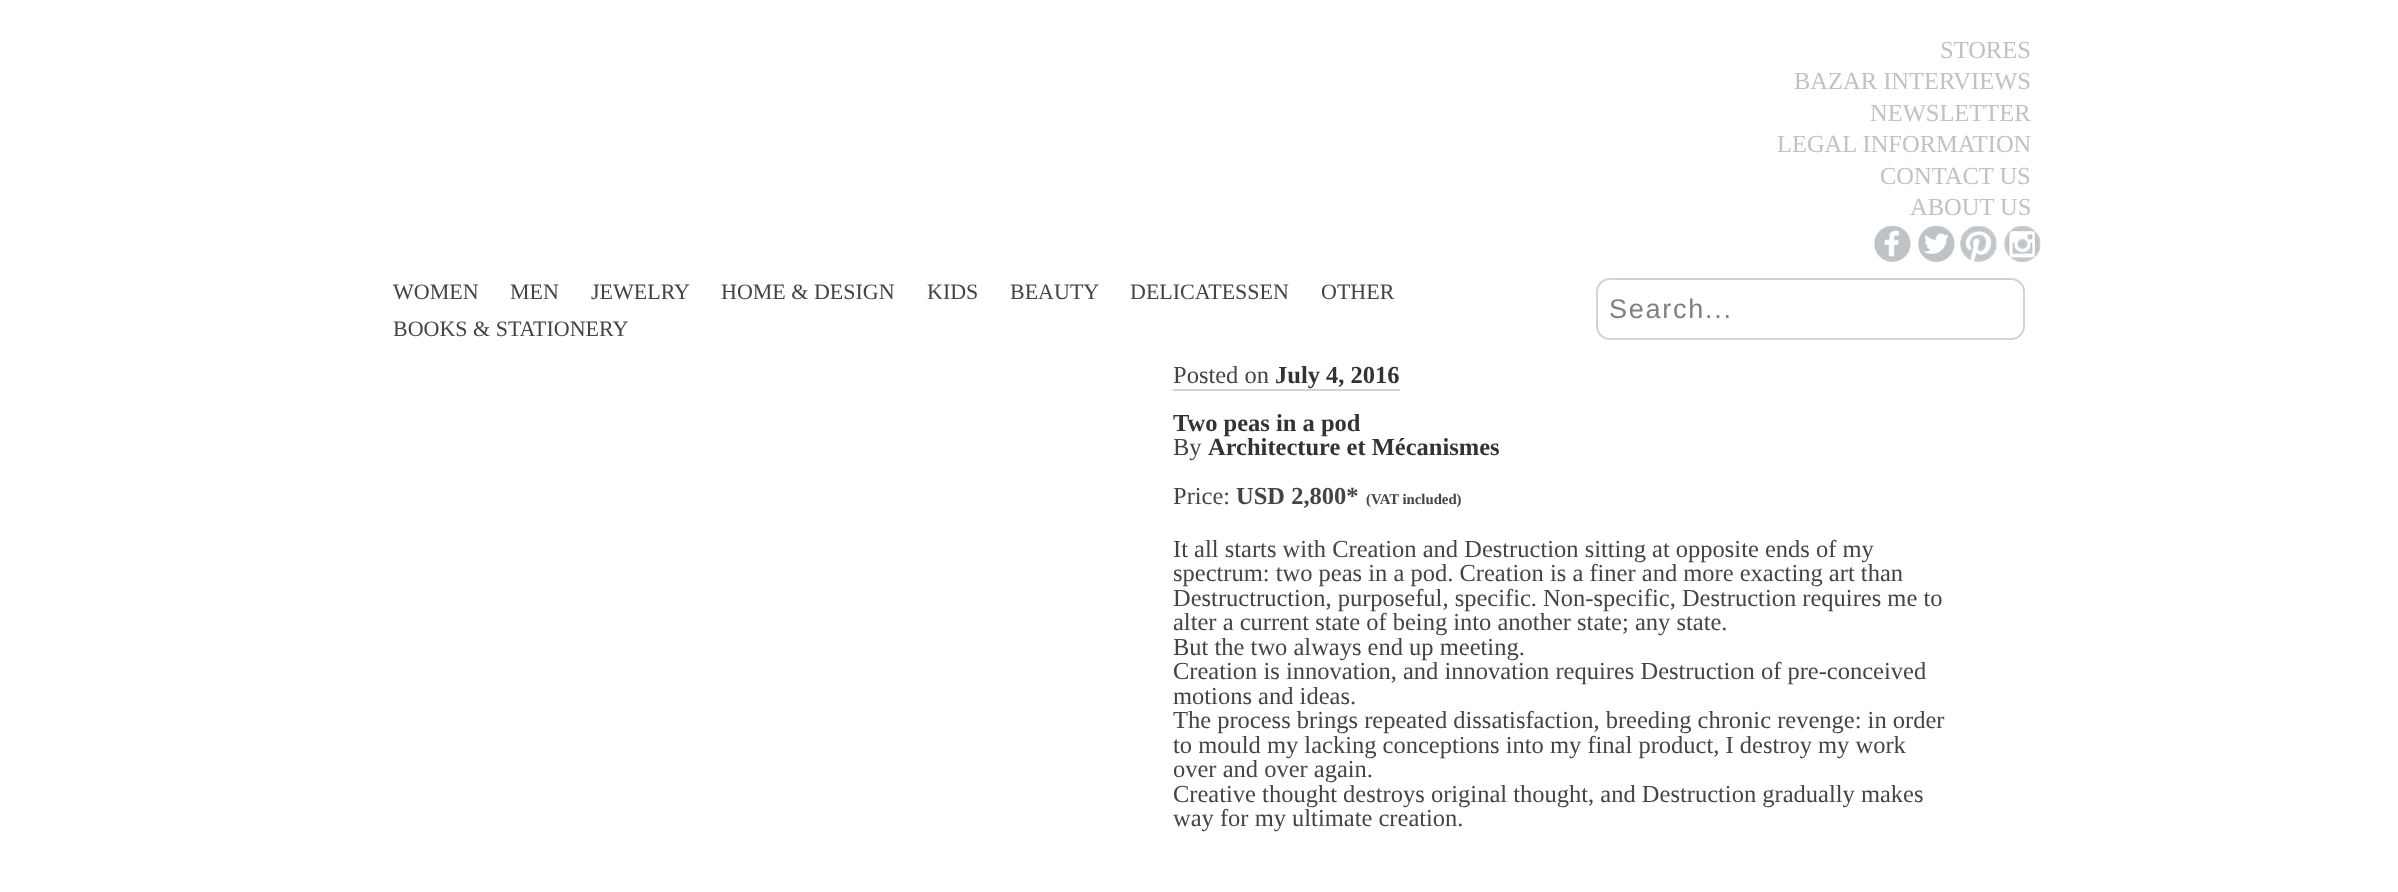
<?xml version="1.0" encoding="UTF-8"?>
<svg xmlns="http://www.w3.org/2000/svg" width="2398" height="892">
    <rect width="100%" height="100%" fill="#FFFFFF"/>
    <text x="1940" y="58" font-family="Liberation Serif" font-size="24.5" fill="#BDC3C7">STORES</text>
    <text x="1794" y="89" font-family="Liberation Serif" font-size="24.5" fill="#BDC3C7">BAZAR INTERVIEWS</text>
    <text x="1870" y="121" font-family="Liberation Serif" font-size="24.5" fill="#BDC3C7">NEWSLETTER</text>
    <text x="1777" y="152" font-family="Liberation Serif" font-size="24.5" fill="#BDC3C7">LEGAL INFORMATION</text>
    <text x="1880" y="184" font-family="Liberation Serif" font-size="24.5" fill="#BDC3C7">CONTACT US</text>
    <text x="1910" y="215" font-family="Liberation Serif" font-size="24.5" fill="#BDC3C7">ABOUT US</text>
    <image x="1874" y="225" width="37" height="37" href="img_01.png"/>
    <image x="1918" y="225" width="37" height="37" href="img_02.png"/>
    <image x="1960" y="226" width="37" height="36" href="img_03.png"/>
    <image x="2004" y="226" width="37" height="36" href="img_04.png"/>
    <text x="393" y="299" font-family="Liberation Serif" font-size="22" fill="#444444">WOMEN</text>
    <text x="510" y="299" font-family="Liberation Serif" font-size="22" fill="#444444">MEN</text>
    <text x="591" y="299" font-family="Liberation Serif" font-size="22" fill="#444444">JEWELRY</text>
    <text x="721" y="299" font-family="Liberation Serif" font-size="22" fill="#444444">HOME &amp; DESIGN</text>
    <text x="927" y="299" font-family="Liberation Serif" font-size="22" fill="#444444">KIDS</text>
    <text x="1010" y="299" font-family="Liberation Serif" font-size="22" fill="#444444">BEAUTY</text>
    <text x="1130" y="299" font-family="Liberation Serif" font-size="22" fill="#444444">DELICATESSEN</text>
    <text x="1321" y="299" font-family="Liberation Serif" font-size="22" fill="#444444">OTHER</text>
    <text x="393" y="336" font-family="Liberation Serif" font-size="22" fill="#444444">BOOKS &amp; STATIONERY</text>
    <rect x="1597" y="279" width="427" height="60" rx="13" fill="none" stroke="#D3D3D3" stroke-width="2"/>
    <text x="1609" y="318" font-family="Liberation Sans" font-size="27" letter-spacing="1.75" fill="#808080">Search...</text>
    <rect x="1173" y="389" width="227" height="2" fill="#D3D3D3"/>
    <text x="1173" y="383" font-family="Liberation Serif" font-size="24.5" fill="#444444">Posted on</text>
    <text x="1275" y="383" font-family="Liberation Serif" font-size="24.5" font-weight="700" fill="#333333">July 4, 2016</text>
    <text x="1173" y="431" font-family="Liberation Serif" font-size="24.5" font-weight="700" fill="#333333">Two peas in a pod</text>
    <text x="1173" y="455" font-family="Liberation Serif" font-size="24.5" fill="#444444">By</text>
    <text x="1208" y="455" font-family="Liberation Serif" font-size="24.5" font-weight="700" fill="#333333">Architecture et Mécanismes</text>
    <text x="1173" y="504" font-family="Liberation Serif" font-size="24.5" fill="#444444">Price:</text>
    <text x="1236" y="504" font-family="Liberation Serif" font-size="24.5" font-weight="700" fill="#444444">USD 2,800*</text>
    <text x="1366" y="504" font-family="Liberation Serif" font-size="14.75" font-weight="700" fill="#444444">(VAT included)</text>
    <text font-family="Liberation Serif" font-size="24.5" fill="#444444">
        <tspan x="1173" y="557">It all starts with Creation and Destruction sitting at opposite ends of my</tspan>
        <tspan x="1173" y="581">spectrum: two peas in a pod. Creation is a finer and more exacting art than</tspan>
        <tspan x="1173" y="606">Destructruction, purposeful, specific. Non-specific, Destruction requires me to</tspan>
        <tspan x="1173" y="630">alter a current state of being into another state; any state.</tspan>
        <tspan x="1173" y="655">But the two always end up meeting.</tspan>
        <tspan x="1173" y="679">Creation is innovation, and innovation requires Destruction of pre-conceived</tspan>
        <tspan x="1173" y="704">motions and ideas.</tspan>
        <tspan x="1173" y="728">The process brings repeated dissatisfaction, breeding chronic revenge: in order</tspan>
        <tspan x="1173" y="753">to mould my lacking conceptions into my final product, I destroy my work</tspan>
        <tspan x="1173" y="777">over and over again.</tspan>
        <tspan x="1173" y="802">Creative thought destroys original thought, and Destruction gradually makes</tspan>
        <tspan x="1173" y="826">way for my ultimate creation.</tspan>
    </text>
</svg>
